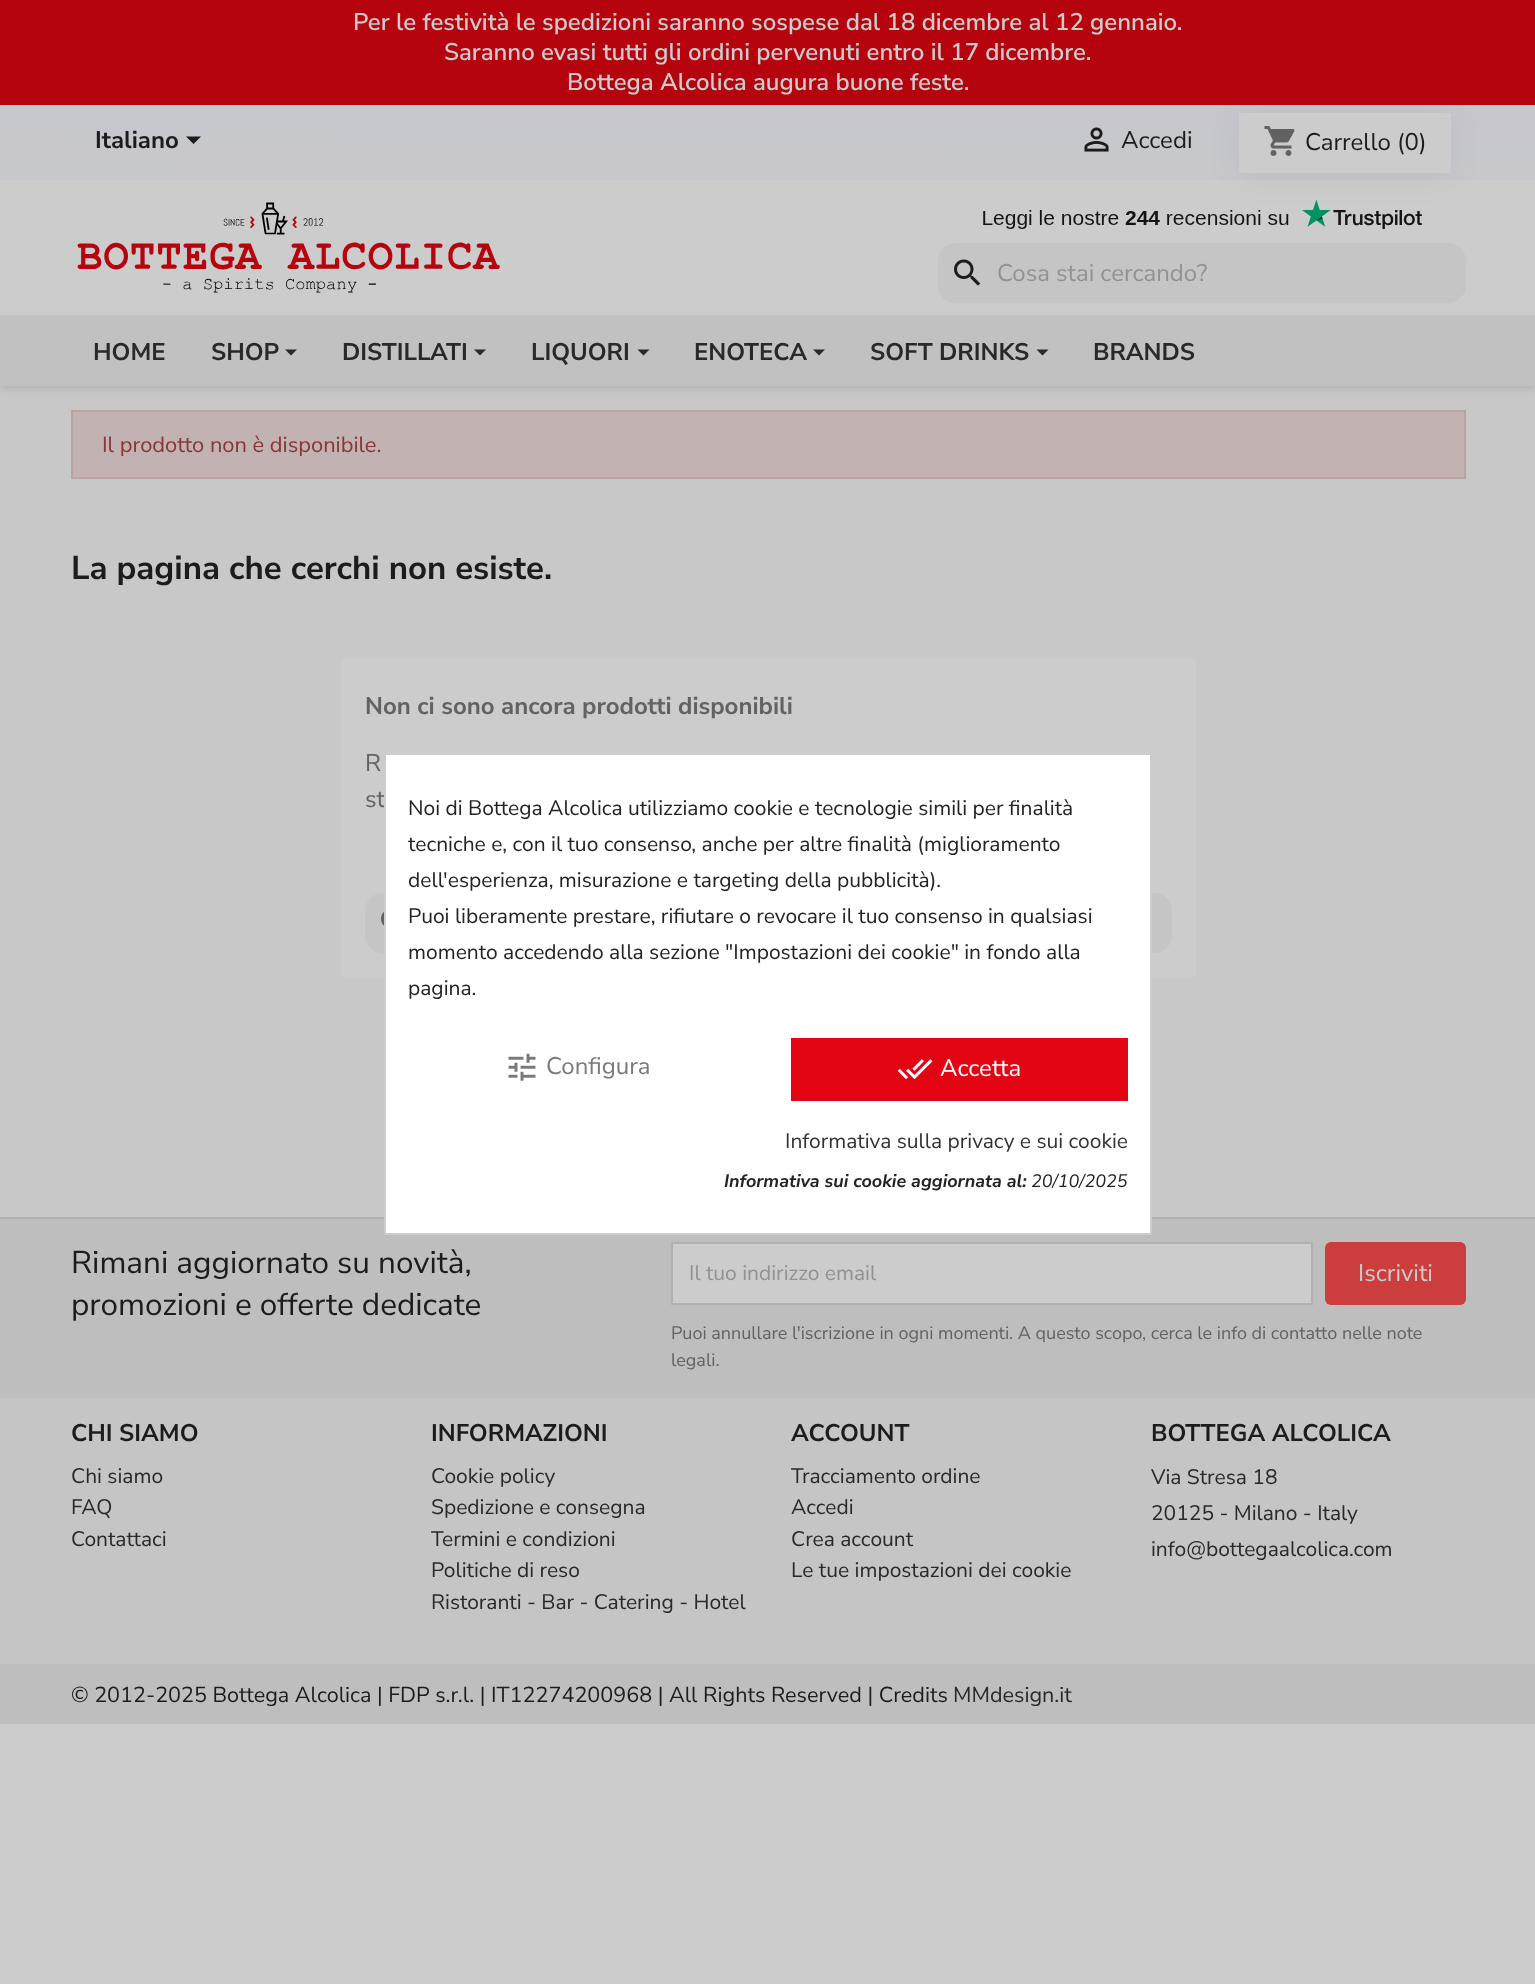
<?xml version="1.0" encoding="UTF-8"?>
<svg xmlns="http://www.w3.org/2000/svg" width="1535" height="1984">
    <defs>
        <filter id="blur1" x="-50%" y="-200%" width="200%" height="500%"><feGaussianBlur stdDeviation="4"/></filter>
        <linearGradient id="g1" gradientUnits="userSpaceOnUse" x1="778" y1="-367" x2="764" y2="399"><stop offset="0" stop-color="#C6C8CC"/><stop offset="0.3" stop-color="#C1C2CC"/><stop offset="1" stop-color="#CCCCCC"/></linearGradient>
        <filter id="blur2" x="-50%" y="-200%" width="200%" height="500%"><feGaussianBlur stdDeviation="15"/></filter>
    </defs>
    <rect width="100%" height="100%" fill="#CCCCCC"/>
    <rect x="0" y="386" width="1535" height="831" fill="#C8C8C8"/>
    <rect x="0" y="3" width="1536" height="386" fill="#000000" fill-opacity="0.11" filter="url(#blur1)"/>
    <rect x="0" y="105" width="1535" height="75" fill="url(#g1)"/>
    <rect x="0" y="0" width="1535" height="105" fill="#B6040F"/>
    <text x="353" y="30" font-family="Nunito Sans" font-size="24" font-weight="600" fill="#CCCCCC">Per le festività le spedizioni saranno sospese dal 18 dicembre al 12 gennaio.</text>
    <text x="444" y="60" font-family="Nunito Sans" font-size="24" font-weight="600" fill="#CCCCCC">Saranno evasi tutti gli ordini pervenuti entro il 17 dicembre.</text>
    <text x="567" y="90" font-family="Nunito Sans" font-size="24" font-weight="600" fill="#CCCCCC">Bottega Alcolica augura buone feste.</text>
    <text x="95" y="148" font-family="Nunito Sans" font-size="24" font-weight="700" fill="#1C1C1C">Italiano</text>
    <path d="M 186 136.5 H 201 L 193.5 144 Z" fill="#1C1C1C"/>
    <image x="1084" y="127" width="25" height="25" href="img_01.png"/>
    <text x="1121" y="148" font-family="Nunito Sans" font-size="24" fill="#1C1C1C">Accedi</text>
    <rect x="0" y="180" width="1535" height="135" fill="#CCCCCC"/>
    <rect x="1239" y="117" width="212" height="60" fill="#000000" fill-opacity="0.06" filter="url(#blur2)"/>
    <rect x="1239" y="113" width="212" height="60" fill="#CCCCCC"/>
    <image x="1264" y="126" width="31" height="30" href="img_02.png"/>
    <text x="1305" y="150" font-family="Nunito Sans" font-size="24" fill="#1C1C1C">Carrello (0)</text>
    <image x="77" y="202" width="423" height="91" href="img_03.png"/>
    <image x="983" y="200" width="439" height="29" href="img_04.png"/>
    <rect x="938" y="243" width="528" height="60" rx="18" fill="#C5C5C5"/>
    <image x="954" y="259" width="27" height="27" href="img_05.png"/>
    <text x="997" y="281" font-family="Nunito Sans" font-size="24" fill="#929292">Cosa stai cercando?</text>
    <rect x="1" y="315" width="1534" height="71" fill="#C1C1C1"/>
    <text x="93" y="360" font-family="Nunito Sans" font-size="24" font-weight="700" fill="#292929">HOME</text>
    <text x="211" y="360" font-family="Nunito Sans" font-size="24" font-weight="700" fill="#292929">SHOP</text>
    <path d="M 285 349.5 H 297 L 291 355.5 Z" fill="#292929"/>
    <text x="342" y="360" font-family="Nunito Sans" font-size="24" font-weight="700" fill="#292929">DISTILLATI</text>
    <path d="M 474 349.5 H 486 L 480 355.5 Z" fill="#292929"/>
    <text x="531" y="360" font-family="Nunito Sans" font-size="24" font-weight="700" fill="#292929">LIQUORI</text>
    <path d="M 637.5 349.5 H 649.5 L 643.5 355.5 Z" fill="#292929"/>
    <text x="694" y="360" font-family="Nunito Sans" font-size="24" font-weight="700" fill="#292929">ENOTECA</text>
    <path d="M 813 349.5 H 825 L 819 355.5 Z" fill="#292929"/>
    <text x="870" y="360" font-family="Nunito Sans" font-size="24" font-weight="700" fill="#292929">SOFT DRINKS</text>
    <path d="M 1036.5 349.5 H 1048.5 L 1042.5 355.5 Z" fill="#292929"/>
    <text x="1093" y="360" font-family="Nunito Sans" font-size="24" font-weight="700" fill="#292929">BRANDS</text>
    <rect x="72" y="411" width="1393" height="67" fill="#C2B2B2" stroke="#BCA3A3" stroke-width="2"/>
    <text x="102" y="452" font-family="Nunito Sans" font-size="21.9" fill="#873635">Il prodotto non è disponibile.</text>
    <text x="71" y="579" font-family="Nunito Sans" font-size="33" font-weight="700" fill="#1C1C1C">La pagina che cerchi non esiste.</text>
    <rect x="341" y="659" width="855" height="318" fill="#CCCCCC"/>
    <text x="365" y="714" font-family="Nunito Sans" font-size="24" font-weight="700" fill="#626262">Non ci sono ancora prodotti disponibili</text>
    <text font-family="Nunito Sans" font-size="24" fill="#626262">
        <tspan x="365" y="771">R</tspan>
        <tspan x="365" y="807">st</tspan>
    </text>
    <rect x="365" y="893" width="807" height="60" rx="18" fill="#C5C5C5"/>
    <image x="381" y="911" width="3" height="15" href="img_06.png"/>
    <rect x="0" y="1219" width="1535" height="505" fill="#BEBEBE"/>
    <rect x="0" y="1217" width="1535" height="2" fill="#B1B1B1"/>
    <text font-family="Nunito Sans" font-size="31.5" fill="#1C1C1C">
        <tspan x="71" y="1273">Rimani aggiornato su novità,</tspan>
        <tspan x="71" y="1315">promozioni e offerte dedicate</tspan>
    </text>
    <rect x="672" y="1243" width="640" height="61" fill="#CCCCCC" stroke="#B1B1B1" stroke-width="2"/>
    <text x="689" y="1280" font-family="Nunito Sans" font-size="21" fill="#929292">Il tuo indirizzo email</text>
    <rect x="1325" y="1242" width="141" height="63" rx="6" fill="#CC3D3D"/>
    <text x="1358" y="1281" font-family="Nunito Sans" font-size="24" fill="#CCCCCC">Iscriviti</text>
    <text font-family="Nunito Sans" font-size="18" fill="#626262">
        <tspan x="671" y="1339">Puoi annullare l'iscrizione in ogni momenti. A questo scopo, cerca le info di contatto nelle note</tspan>
        <tspan x="671" y="1366">legali.</tspan>
    </text>
    <rect x="0" y="1398" width="1535" height="266" fill="#C5C5C5"/>
    <text x="71" y="1441" font-family="Nunito Sans" font-size="24" font-weight="700" fill="#1C1C1C">CHI SIAMO</text>
    <text font-family="Nunito Sans" font-size="21" fill="#292929">
        <tspan x="71" y="1483">Chi siamo</tspan>
        <tspan x="71" y="1514">FAQ</tspan>
        <tspan x="71" y="1546">Contattaci</tspan>
    </text>
    <text x="431" y="1441" font-family="Nunito Sans" font-size="24" font-weight="700" fill="#1C1C1C">INFORMAZIONI</text>
    <text font-family="Nunito Sans" font-size="21" fill="#292929">
        <tspan x="431" y="1483">Cookie policy</tspan>
        <tspan x="431" y="1514">Spedizione e consegna</tspan>
        <tspan x="431" y="1546">Termini e condizioni</tspan>
        <tspan x="431" y="1577">Politiche di reso</tspan>
        <tspan x="431" y="1609">Ristoranti - Bar - Catering - Hotel</tspan>
    </text>
    <text x="791" y="1441" font-family="Nunito Sans" font-size="24" font-weight="700" fill="#1C1C1C">ACCOUNT</text>
    <text font-family="Nunito Sans" font-size="21" fill="#292929">
        <tspan x="791" y="1483">Tracciamento ordine</tspan>
        <tspan x="791" y="1514">Accedi</tspan>
        <tspan x="791" y="1546">Crea account</tspan>
        <tspan x="791" y="1577">Le tue impostazioni dei cookie</tspan>
    </text>
    <text x="1151" y="1441" font-family="Nunito Sans" font-size="24" font-weight="700" fill="#1C1C1C">BOTTEGA ALCOLICA</text>
    <text font-family="Nunito Sans" font-size="21" fill="#292929">
        <tspan x="1151" y="1484">Via Stresa 18</tspan>
        <tspan x="1151" y="1520">20125 - Milano - Italy</tspan>
        <tspan x="1151" y="1556">info@bottegaalcolica.com</tspan>
    </text>
    <text x="71" y="1702" font-family="Nunito Sans" font-size="21.6" fill="#1C1C1C">© 2012-2025 Bottega Alcolica | FDP s.r.l. | IT12274200968 | All Rights Reserved | Credits</text>
    <text x="953" y="1702" font-family="Nunito Sans" font-size="21.6" fill="#292929">MMdesign.it</text>
    <rect x="385" y="754" width="766" height="480" fill="#FFFFFF" stroke="#CCCCCC" stroke-width="2"/>
    <text font-family="Nunito Sans" font-size="21" fill="#232323">
        <tspan x="408" y="815">Noi di Bottega Alcolica utilizziamo cookie e tecnologie simili per finalità</tspan>
        <tspan x="408" y="851">tecniche e, con il tuo consenso, anche per altre finalità (miglioramento</tspan>
        <tspan x="408" y="887">dell'esperienza, misurazione e targeting della pubblicità).</tspan>
        <tspan x="408" y="923">Puoi liberamente prestare, rifiutare o revocare il tuo consenso in qualsiasi</tspan>
        <tspan x="408" y="959">momento accedendo alla sezione "Impostazioni dei cookie" in fondo alla</tspan>
        <tspan x="408" y="995">pagina.</tspan>
    </text>
    <image x="508" y="1053" width="28" height="28" href="img_07.png"/>
    <text x="546" y="1074" font-family="Nunito Sans" font-size="24" fill="#7A7A7A">Configura</text>
    <rect x="791" y="1038" width="337" height="63" fill="#E30513"/>
    <image x="897" y="1059" width="36" height="21" href="img_08.png"/>
    <text x="940" y="1076" font-family="Nunito Sans" font-size="24" fill="#FFFFFF">Accetta</text>
    <text x="785" y="1148" font-family="Nunito Sans" font-size="21" fill="#333333">Informativa sulla privacy e sui cookie</text>
    <text x="724" y="1187" font-family="Nunito Sans" font-size="18" font-weight="700" font-style="italic" fill="#232323">Informativa sui cookie aggiornata al:</text>
    <text x="1031" y="1187" font-family="Nunito Sans" font-size="18" font-style="italic" fill="#232323">20/10/2025</text>
</svg>
